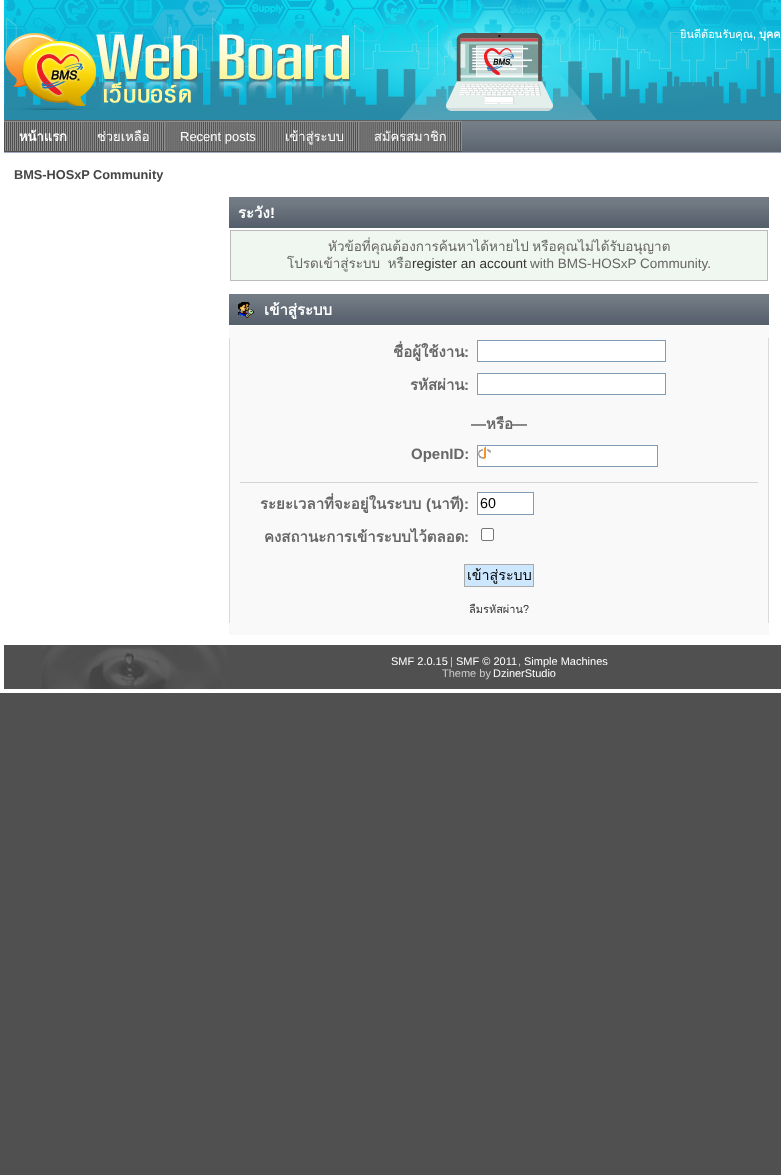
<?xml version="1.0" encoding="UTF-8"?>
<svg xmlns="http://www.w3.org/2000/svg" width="781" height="1175">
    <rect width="100%" height="100%" fill="#505050"/>
    <rect x="0" y="689" width="781" height="4" fill="#FFFFFF"/>
    <rect x="0" y="0" width="4" height="693" fill="#FFFFFF"/>
    <image x="4" y="0" width="777" height="120" href="img_01.png"/>
    <image x="5" y="33" width="345" height="77" href="img_02.png"/>
    <text x="680" y="38" font-family="Loma" font-size="11" fill="#FFFFFF">ยินดีต้อนรับคุณ</text>
    <text x="753" y="38" font-family="Liberation Sans" font-size="11" fill="#FFFFFF">,</text>
    <text x="759" y="38" font-family="Loma" font-size="11" font-weight="700" fill="#FFFFFF">บุคค</text>
    <image x="462" y="121" width="319" height="31" href="img_03.png"/>
    <rect x="4" y="120" width="777" height="1" fill="#606060"/>
    <image x="4" y="121" width="78" height="31" href="img_04.png"/>
    <text x="19" y="141" font-family="Loma" font-size="13" font-weight="700" fill="#FFFFFF">หน้าแรก</text>
    <image x="82" y="121" width="83" height="31" href="img_05.png"/>
    <text x="97" y="141" font-family="Loma" font-size="13" fill="#FFFFFF">ช่วยเหลือ</text>
    <image x="165" y="121" width="105" height="31" href="img_06.png"/>
    <text x="180" y="141" font-family="Liberation Sans" font-size="13" fill="#FFFFFF">Recent posts</text>
    <image x="270" y="121" width="89" height="31" href="img_07.png"/>
    <text x="285" y="141" font-family="Loma" font-size="13" fill="#FFFFFF">เข้าสู่ระบบ</text>
    <image x="359" y="121" width="103" height="31" href="img_08.png"/>
    <text x="374" y="141" font-family="Loma" font-size="13" fill="#FFFFFF">สมัครสมาชิก</text>
    <rect x="4" y="153" width="777" height="492" fill="#FFFFFF"/>
    <rect x="4" y="152" width="777" height="1" fill="#A3A9BE"/>
    <text x="14" y="179" font-family="Liberation Sans" font-size="12.75" font-weight="700" fill="#454545">BMS-HOSxP Community</text>
    <image x="229" y="197" width="540" height="31" href="img_09.png"/>
    <text x="238" y="218" font-family="Loma" font-size="15" font-weight="700" fill="#FFFFFF">ระวัง</text>
    <text x="270" y="218" font-family="Liberation Sans" font-size="15" font-weight="700" fill="#FFFFFF">!</text>
    <rect x="230.5" y="230.5" width="537" height="50" fill="#F0F6F0" stroke="#BBBBBB"/>
    <text x="328" y="251" word-spacing="-1" font-family="Loma" font-size="13.5" fill="#666666">หัวข้อที่คุณต้องการค้นหาได้หายไป หรือคุณไม่ได้รับอนุญาต</text>
    <text x="287" y="268" word-spacing="3" font-family="Loma" font-size="13.5" fill="#666666">โปรดเข้าสู่ระบบ หรือ</text>
    <text x="412" y="268" font-family="Liberation Sans" font-size="13.5" fill="#333333">register an account</text>
    <text x="530" y="268" font-family="Liberation Sans" font-size="13.5" fill="#666666">with BMS-HOSxP Community.</text>
    <image x="229" y="294" width="540" height="31" href="img_09.png"/>
    <image x="238" y="302" width="16" height="16" href="img_10.png"/>
    <text x="264" y="315" font-family="Loma" font-size="15" font-weight="700" fill="#FFFFFF">เข้าสู่ระบบ</text>
    <rect x="229" y="326" width="540" height="12" fill="#F9F9F9"/>
    <rect x="230" y="338" width="538" height="285" fill="#F9F9F9"/>
    <rect x="768" y="338" width="1" height="285" fill="#DADADA"/>
    <rect x="229" y="338" width="1" height="285" fill="#DADADA"/>
    <text x="393" y="357" font-family="Loma" font-size="15" font-weight="700" fill="#666666">ชื่อผู้ใช้งาน</text>
    <text x="464" y="357" font-family="Liberation Sans" font-size="15" font-weight="700" fill="#666666">:</text>
    <rect x="477.5" y="340.5" width="188" height="21" fill="#FFFFFF" stroke="#7F9DB9"/>
    <text x="410" y="390" font-family="Loma" font-size="15" font-weight="700" fill="#666666">รหัสผ่าน</text>
    <text x="464" y="390" font-family="Liberation Sans" font-size="15" font-weight="700" fill="#666666">:</text>
    <rect x="477.5" y="373.5" width="188" height="21" fill="#FFFFFF" stroke="#7F9DB9"/>
    <text x="471" y="429" font-family="Liberation Sans" font-size="15" font-weight="700" fill="#666666">—</text>
    <text x="486" y="429" font-family="Loma" font-size="15" font-weight="700" fill="#666666">หรือ</text>
    <text x="512" y="429" font-family="Liberation Sans" font-size="15" font-weight="700" fill="#666666">—</text>
    <text x="411" y="459" font-family="Liberation Sans" font-size="15" font-weight="700" fill="#666666">OpenID:</text>
    <rect x="478" y="446" width="179" height="20" fill="#FFFFFF"/>
    <image x="478" y="446" width="13" height="13" href="img_11.png"/>
    <rect x="477.5" y="445.5" width="180" height="21" fill="none" stroke="#7F9DB9"/>
    <rect x="240" y="482" width="518" height="1" fill="#D4D4D4"/>
    <text x="260" y="509" font-family="Loma" font-size="15" font-weight="700" fill="#666666">ระยะเวลาที่จะอยู่ในระบบ</text>
    <text x="426" y="509" font-family="Liberation Sans" font-size="15" font-weight="700" fill="#666666">(</text>
    <text x="431" y="509" font-family="Loma" font-size="15" font-weight="700" fill="#666666">นาที</text>
    <text x="459" y="509" font-family="Liberation Sans" font-size="15" font-weight="700" fill="#666666">):</text>
    <rect x="477.5" y="492.5" width="56" height="22" fill="#FFFFFF" stroke="#7F9DB9"/>
    <text x="480" y="508" font-family="Liberation Sans" font-size="14.25" fill="#000000">60</text>
    <text x="264" y="542" font-family="Loma" font-size="15" font-weight="700" fill="#666666">คงสถานะการเข้าระบบไว้ตลอด</text>
    <text x="464" y="542" font-family="Liberation Sans" font-size="15" font-weight="700" fill="#666666">:</text>
    <rect x="481.5" y="528.5" width="12" height="12" rx="1.5" fill="#FFFFFF" stroke="#767676"/>
    <rect x="464.5" y="564.5" width="69" height="22" fill="#CDE7FF" stroke="#AAAAAA"/>
    <text x="467" y="580" font-family="Loma" font-size="14.25" fill="#000000">เข้าสู่ระบบ</text>
    <text x="469" y="613" font-family="Loma" font-size="11" fill="#333333">ลืมรหัสผ่าน?</text>
    <rect x="229" y="623" width="540" height="12" fill="#F9F9F9"/>
    <image x="42" y="645" width="185" height="44" href="img_12.png"/>
    <text x="391" y="665" font-family="Liberation Sans" font-size="11" fill="#FFFFFF">SMF 2.0.15</text>
    <text x="450" y="665" font-family="Liberation Sans" font-size="11" fill="#CCCCCC">|</text>
    <text x="456" y="665" font-family="Liberation Sans" font-size="11" fill="#FFFFFF">SMF © 2011</text>
    <text x="518" y="665" font-family="Liberation Sans" font-size="11" fill="#CCCCCC">,</text>
    <text x="524" y="665" font-family="Liberation Sans" font-size="11" fill="#FFFFFF">Simple Machines</text>
    <text x="442" y="677" font-family="Liberation Sans" font-size="11" fill="#CCCCCC">Theme by</text>
    <text x="493" y="677" font-family="Liberation Sans" font-size="11" fill="#FFFFFF">DzinerStudio</text>
</svg>
